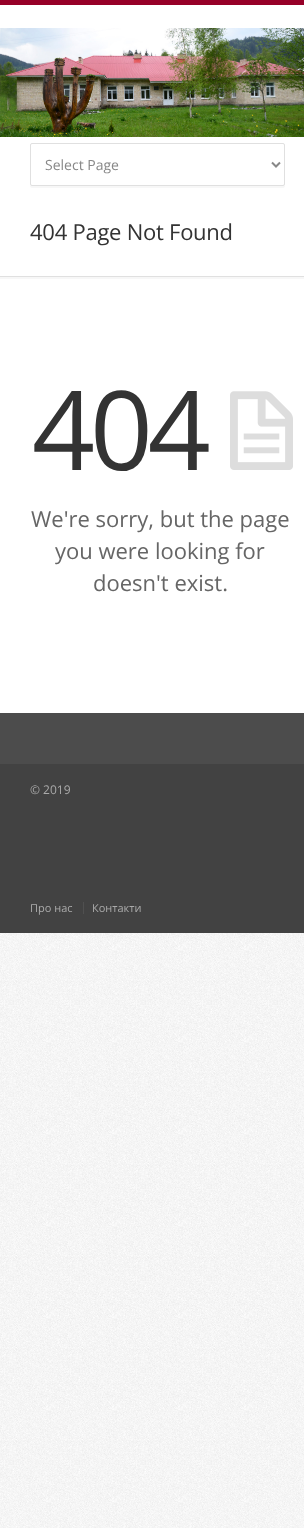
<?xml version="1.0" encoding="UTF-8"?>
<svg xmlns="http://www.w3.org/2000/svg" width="304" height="1528">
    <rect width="100%" height="100%" fill="#FFFFFF"/>
    <image x="0" y="933" width="304" height="595" href="img_01.png"/>
    <rect x="0" y="0" width="304" height="5" fill="#960028"/>
    <image x="0" y="28" width="304" height="109" href="img_02.png"/>
    <path d="M 30 184 V 186 C 30 187 31 188 32 188 H 283 C 284 188 285 187 285 186 V 184 C 285 185 284 186 283 186 H 32 C 31 186 30 185 30 184 Z" fill="#F7F7F7"/>
    <rect x="30.5" y="143.5" width="254" height="42" rx="1.5" fill="none" stroke="#E0E0E0"/>
    <path d="M 272 162.5 L 276 166.5 L 280 162.5" fill="none" stroke="#888888" stroke-width="2"/>
    <text x="45" y="170" font-family="Open Sans" font-size="14" fill="#888888">Select Page</text>
    <rect x="0" y="277" width="304" height="2" fill="#F7F7F7"/>
    <rect x="0" y="276" width="304" height="1" fill="#E0E0E0"/>
    <text x="30" y="240" font-family="Open Sans" font-size="22" letter-spacing="-0.25" fill="#333333">404 Page Not Found</text>
    <text x="32" y="470" font-family="Open Sans" font-size="110" letter-spacing="-5" fill="#333333">404</text>
    <image x="230" y="391" width="63" height="79" href="img_03.png"/>
    <text x="31" y="527" font-family="Open Sans" font-size="22" fill="#666666">We're sorry, but the page</text>
    <text x="55" y="559" font-family="Open Sans" font-size="22" fill="#666666">you were looking for</text>
    <text x="93" y="591" font-family="Open Sans" font-size="22" fill="#666666">doesn't exist.</text>
    <rect x="0" y="713" width="304" height="51" fill="#4C4C4C"/>
    <rect x="0" y="764" width="304" height="169" fill="#424242"/>
    <text x="30" y="794" font-family="Open Sans" font-size="12" fill="#AAAAAA">© 2019</text>
    <text x="30" y="912" font-family="Open Sans" font-size="11" fill="#AAAAAA">Про нас</text>
    <rect x="83" y="902" width="1" height="12" fill="#505050"/>
    <text x="92" y="912" font-family="Open Sans" font-size="11" fill="#AAAAAA">Контакти</text>
</svg>
